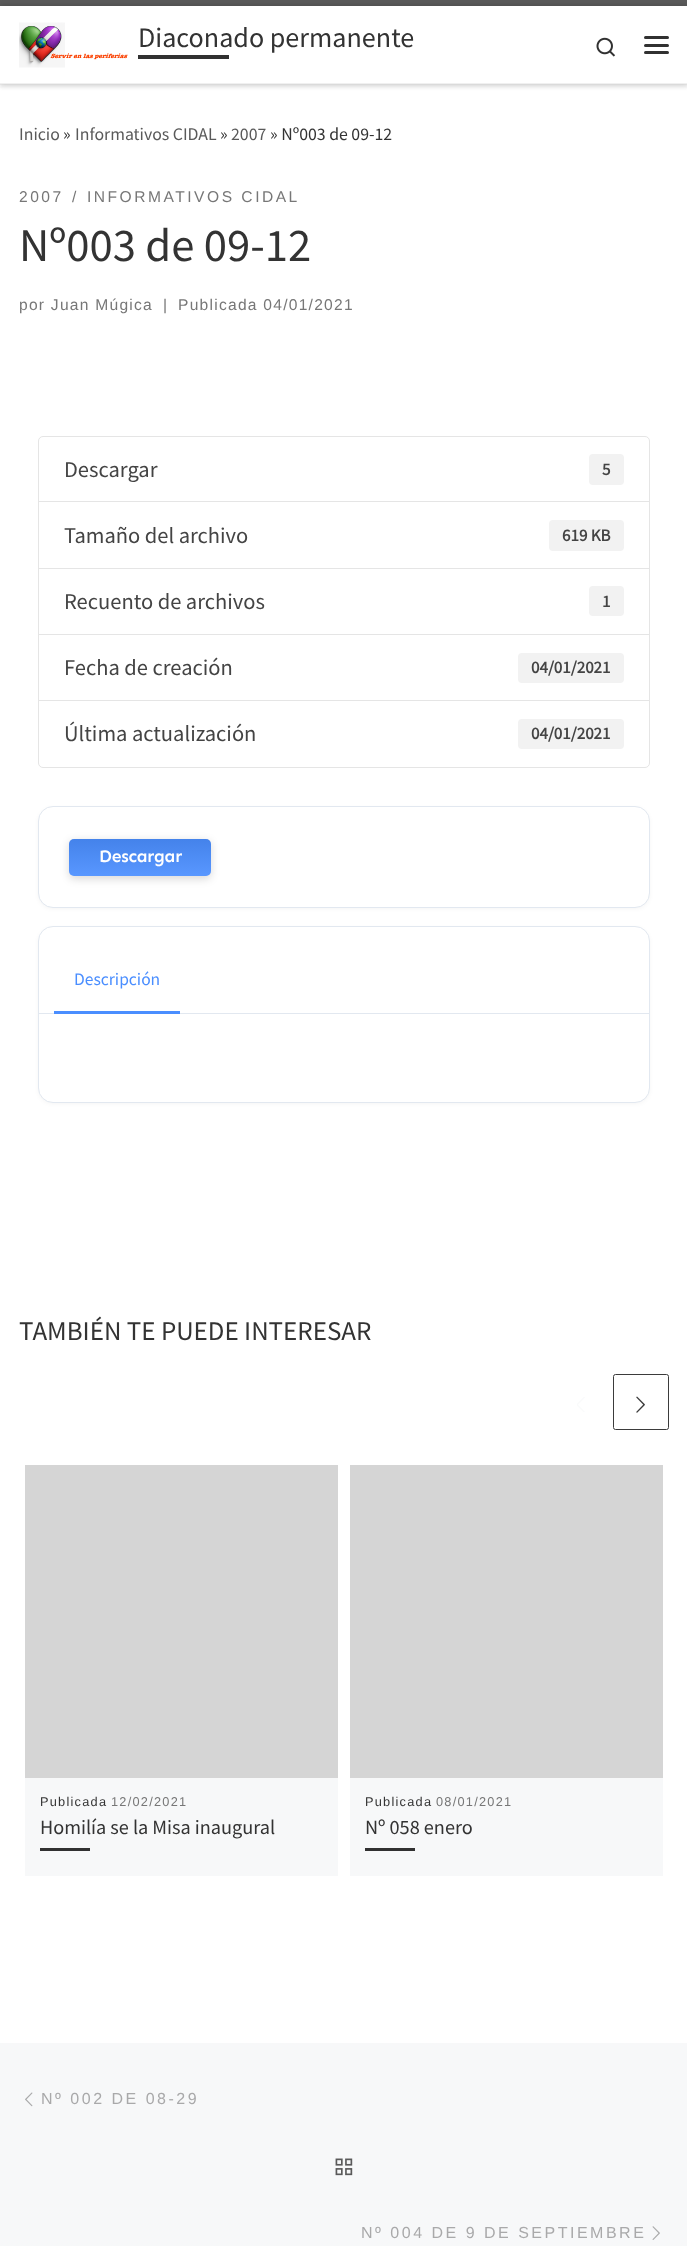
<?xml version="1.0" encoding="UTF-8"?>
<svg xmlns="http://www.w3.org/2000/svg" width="687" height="2246">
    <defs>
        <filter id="blur1" x="-50%" y="-200%" width="200%" height="500%"><feGaussianBlur stdDeviation="1"/></filter>
        <filter id="blur2" x="-50%" y="-200%" width="200%" height="500%"><feGaussianBlur stdDeviation="3"/></filter>
        <filter id="blur3" x="-50%" y="-200%" width="200%" height="500%"><feGaussianBlur stdDeviation="2"/></filter>
        <filter id="blur4" x="-50%" y="-200%" width="200%" height="500%"><feGaussianBlur stdDeviation="4"/></filter>
        <linearGradient id="g1" gradientUnits="userSpaceOnUse" x1="140" y1="839" x2="140" y2="876"><stop offset="0" stop-color="#000000" stop-opacity="0.08"/><stop offset="1" stop-color="#FFFFFF" stop-opacity="0.08"/></linearGradient>
    </defs>
    <rect width="100%" height="100%" fill="#FFFFFF"/>
    <rect x="0" y="3" width="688" height="85" fill="#666666" fill-opacity="0.08" filter="url(#blur1)"/>
    <rect x="0" y="0" width="687" height="6" fill="#5A5A5A"/>
    <path d="M 0 84 V 85 H 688 V 8 V 84 Z" fill="#EFEFEF"/>
    <rect x="0" y="6" width="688" height="78" fill="#000000" fill-opacity="0.2" filter="url(#blur2)"/>
    <rect x="0" y="6" width="687" height="77" fill="#FFFFFF"/>
    <image x="19" y="22" width="109" height="46" href="img_01.png"/>
    <text x="138" y="47" font-family="Source Sans Pro" font-size="28.1" fill="#333333">Diaconado permanente</text>
    <rect x="138" y="55" width="91" height="4" fill="#313131"/>
    <image x="596" y="37" width="20" height="20" href="img_02.png"/>
    <rect x="644" y="36" width="25" height="3" rx="1.5" fill="#313131"/>
    <rect x="644" y="44" width="25" height="3" rx="1.5" fill="#313131"/>
    <rect x="644" y="51" width="25" height="3" rx="1.5" fill="#313131"/>
    <rect x="0" y="83" width="687" height="1" fill="#F0F0F0"/>
    <text x="19" y="140" font-family="Source Sans Pro" font-size="17.75" fill="#5A5A5A">Inicio</text>
    <text x="63" y="140" font-family="Source Sans Pro" font-size="17.75" fill="#333333">»</text>
    <text x="75" y="140" font-family="Source Sans Pro" font-size="17.75" fill="#5A5A5A">Informativos CIDAL</text>
    <text x="220" y="140" font-family="Source Sans Pro" font-size="17.75" fill="#333333">»</text>
    <text x="231" y="140" font-family="Source Sans Pro" font-size="17.75" fill="#5A5A5A">2007</text>
    <text x="270" y="140" font-family="Source Sans Pro" font-size="17.75" fill="#333333">» Nº003 de 09-12</text>
    <text x="19" y="202" font-family="Liberation Sans" font-size="15.6" letter-spacing="2.5" fill="#777777">2007</text>
    <text x="72" y="202" font-family="Liberation Sans" font-size="15.6" letter-spacing="2.5" fill="#777777">/</text>
    <text x="87" y="202" font-family="Liberation Sans" font-size="15.6" letter-spacing="2.5" fill="#777777">INFORMATIVOS CIDAL</text>
    <text x="19" y="261" font-family="Source Sans Pro" font-size="46.75" fill="#333333">Nº003 de 09-12</text>
    <text x="19" y="310" font-family="Liberation Sans" font-size="15.6" letter-spacing="1.25" fill="#777777">por Juan Múgica</text>
    <text x="163" y="310" font-family="Liberation Sans" font-size="15.6" letter-spacing="1.25" fill="#777777">|</text>
    <text x="178" y="310" font-family="Liberation Sans" font-size="15.6" letter-spacing="1.25" fill="#777777">Publicada 04/01/2021</text>
    <path d="M 43 436.5 H 645 C 647.5 436.5 649.5 438.5 649.5 441 V 502.5 H 38.5 V 441 C 38.5 438.5 40.5 436.5 43 436.5 Z" fill="none" stroke="#E5E5E5"/>
    <text x="64" y="477" font-family="Source Sans Pro" font-size="22.5" fill="#444444">Descargar</text>
    <rect x="589" y="454" width="35" height="31" rx="4" fill="#F2F2F2"/>
    <text x="602" y="475" font-family="Source Sans Pro" font-size="17" font-weight="700" fill="#444444">5</text>
    <rect x="39" y="502" width="610" height="1" fill="#FFFFFF"/>
    <rect x="38.5" y="501.5" width="611" height="67" fill="none" stroke="#E5E5E5"/>
    <text x="64" y="543" font-family="Source Sans Pro" font-size="22.5" fill="#444444">Tamaño del archivo</text>
    <rect x="549" y="520" width="75" height="31" rx="4" fill="#F2F2F2"/>
    <text x="562" y="541" font-family="Source Sans Pro" font-size="17" font-weight="700" fill="#444444">619 KB</text>
    <rect x="38.5" y="568.5" width="611" height="66" fill="none" stroke="#E5E5E5"/>
    <text x="64" y="609" font-family="Source Sans Pro" font-size="22.5" fill="#444444">Recuento de archivos</text>
    <rect x="589" y="586" width="35" height="30" rx="4" fill="#F2F2F2"/>
    <text x="602" y="607" font-family="Source Sans Pro" font-size="17" font-weight="700" fill="#444444">1</text>
    <rect x="38.5" y="634.5" width="611" height="66" fill="none" stroke="#E5E5E5"/>
    <text x="64" y="675" font-family="Source Sans Pro" font-size="22.5" fill="#444444">Fecha de creación</text>
    <rect x="518" y="653" width="106" height="30" rx="4" fill="#F2F2F2"/>
    <text x="531" y="673" font-family="Source Sans Pro" font-size="17" font-weight="700" fill="#444444">04/01/2021</text>
    <path d="M 38.5 700.5 H 649.5 V 763 C 649.5 765.5 647.5 767.5 645 767.5 H 43 C 40.5 767.5 38.5 765.5 38.5 763 Z" fill="#FFFFFF" stroke="#E5E5E5"/>
    <text x="64" y="741" font-family="Source Sans Pro" font-size="22.5" fill="#444444">Última actualización</text>
    <rect x="518" y="719" width="106" height="30" rx="4" fill="#F2F2F2"/>
    <text x="531" y="739" font-family="Source Sans Pro" font-size="17" font-weight="700" fill="#444444">04/01/2021</text>
    <rect x="38" y="808" width="612" height="101" rx="15" fill="#000000" fill-opacity="0.04" filter="url(#blur3)"/>
    <rect x="38.5" y="806.5" width="611" height="101" rx="14.5" fill="#FFFFFF" stroke="#E2E8F0"/>
    <rect x="69" y="841" width="142" height="38" rx="5" fill="#000000" fill-opacity="0.15" filter="url(#blur4)"/>
    <rect x="69" y="839" width="142" height="37" rx="5" fill="#4A8EFF"/>
    <rect x="69" y="839" width="142" height="37" rx="5" fill="url(#g1)"/>
    <text x="99" y="862" font-family="Sen" font-size="17.5" font-weight="600" letter-spacing="-0.25" fill="#FFFFFF">Descargar</text>
    <rect x="38" y="928" width="612" height="176" rx="15" fill="#000000" fill-opacity="0.04" filter="url(#blur3)"/>
    <rect x="38.5" y="926.5" width="611" height="176" rx="14.5" fill="#FFFFFF" stroke="#E2E8F0"/>
    <rect x="39" y="1013" width="610" height="1" fill="#E2E8F0"/>
    <text x="74" y="985" font-family="Source Sans Pro" font-size="17.5" fill="#4A8EFF">Descripción</text>
    <rect x="54" y="1011" width="126" height="3" fill="#4A8EFF"/>
    <text x="19" y="1340" font-family="Source Sans Pro" font-size="27" fill="#333333">TAMBIÉN TE PUEDE INTERESAR</text>
    <image x="577" y="1397" width="8" height="15" href="img_03.png"/>
    <rect x="613.5" y="1374.5" width="55" height="55" rx="2" fill="none" stroke="#3B3B3B"/>
    <image x="636" y="1396" width="9" height="17" href="img_04.png"/>
    <rect x="25" y="1778" width="313" height="98" fill="#F7F8F9"/>
    <rect x="25" y="1465" width="313" height="313" fill="#D5D5D5"/>
    <text x="40" y="1806" font-family="Liberation Sans" font-size="12.75" letter-spacing="1.25" fill="#333333">Publicada</text>
    <text x="111" y="1806" font-family="Liberation Sans" font-size="12.75" letter-spacing="1.25" fill="#777777">12/02/2021</text>
    <text x="40" y="1834" font-family="Source Sans Pro" font-size="20.25" fill="#333333">Homilía se la Misa inaugural</text>
    <rect x="40" y="1848" width="50" height="3" fill="#313131"/>
    <rect x="350" y="1778" width="313" height="98" fill="#F7F8F9"/>
    <rect x="350" y="1465" width="313" height="313" fill="#D5D5D5"/>
    <text x="365" y="1806" font-family="Liberation Sans" font-size="12.75" letter-spacing="1.25" fill="#333333">Publicada</text>
    <text x="436" y="1806" font-family="Liberation Sans" font-size="12.75" letter-spacing="1.25" fill="#777777">08/01/2021</text>
    <text x="365" y="1834" font-family="Source Sans Pro" font-size="20.25" fill="#333333">Nº 058 enero</text>
    <rect x="365" y="1848" width="50" height="3" fill="#313131"/>
    <rect x="0" y="2043" width="687" height="203" fill="#F7F8F9"/>
    <image x="25" y="2092" width="8" height="15" href="img_05.png"/>
    <text x="41" y="2104" font-family="Liberation Sans" font-size="16" letter-spacing="2.5" fill="#A9A9AA">Nº 002 DE 08-29</text>
    <image x="335" y="2158" width="18" height="18" href="img_06.png"/>
    <text x="361" y="2238" font-family="Liberation Sans" font-size="16" letter-spacing="2.5" fill="#A9A9AA">Nº 004 DE 9 DE SEPTIEMBRE</text>
    <image x="652" y="2226" width="8" height="14" href="img_07.png"/>
</svg>
